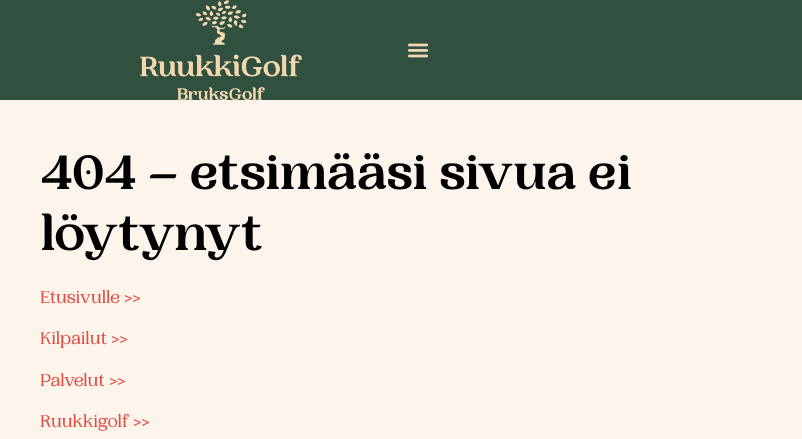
<?xml version="1.0" encoding="UTF-8"?>
<svg xmlns="http://www.w3.org/2000/svg" width="802" height="439">
    <rect width="100%" height="100%" fill="#FDF5EC"/>
    <rect x="0" y="0" width="802" height="100" fill="#305140"/>
    <image x="140" y="0" width="162" height="100" href="img_01.png"/>
    <image x="407" y="43" width="22" height="15" href="img_02.png"/>
    <text font-family="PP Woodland" font-size="50.75" font-weight="700" fill="#000000">
        <tspan x="40" y="189">404 – etsimääsi sivua ei</tspan>
        <tspan x="40" y="250">löytynyt</tspan>
    </text>
    <text x="40" y="303" font-family="PP Woodland" font-size="18" fill="#E34A40">Etusivulle &gt;&gt;</text>
    <text x="40" y="344" font-family="PP Woodland" font-size="18" fill="#E34A40">Kilpailut &gt;&gt;</text>
    <text x="40" y="386" font-family="PP Woodland" font-size="18" fill="#E34A40">Palvelut &gt;&gt;</text>
    <text x="40" y="427" font-family="PP Woodland" font-size="18" fill="#E34A40">Ruukkigolf &gt;&gt;</text>
</svg>
